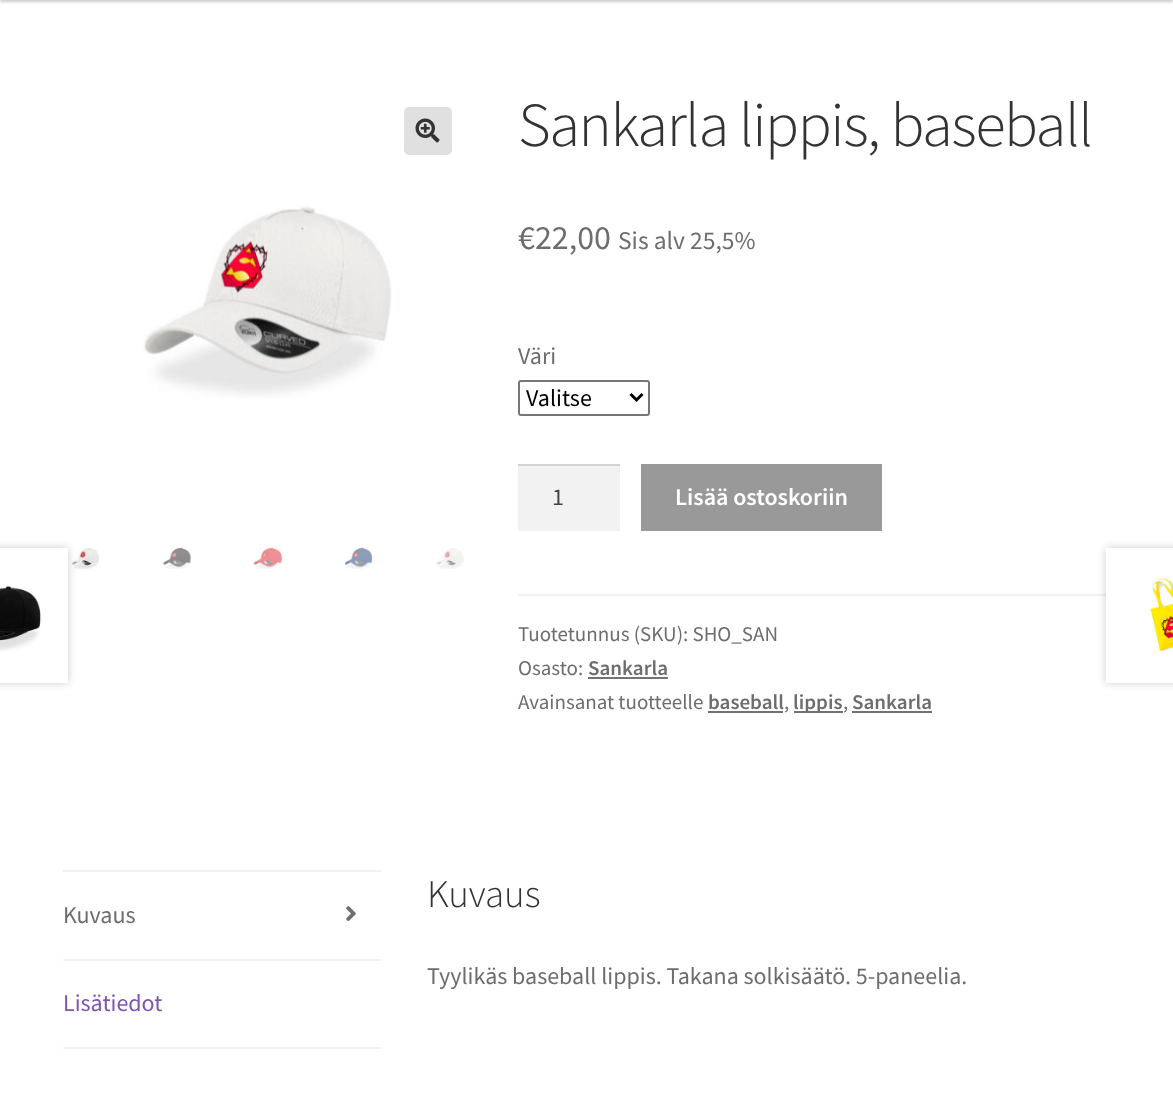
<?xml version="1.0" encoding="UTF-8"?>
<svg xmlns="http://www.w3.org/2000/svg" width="1173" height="1095">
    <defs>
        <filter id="blur1" x="-50%" y="-200%" width="200%" height="500%"><feGaussianBlur stdDeviation="1.5"/></filter>
        <filter id="blur2" x="-50%" y="-200%" width="200%" height="500%"><feGaussianBlur stdDeviation="4"/></filter>
    </defs>
    <rect width="100%" height="100%" fill="#FFFFFF"/>
    <rect x="0" y="-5" width="1173" height="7" fill="#000000" fill-opacity="0.2" filter="url(#blur1)"/>
    <rect x="404" y="107" width="48" height="48" rx="5" fill="#E0E0E0"/>
    <image x="415" y="118" width="25" height="25" href="img_01.png"/>
    <image x="142" y="206" width="250" height="192" href="img_02.png"/>
    <image x="71" y="547" width="28" height="23" href="img_03.png"/>
    <image x="162" y="547" width="30" height="22" href="img_04.png"/>
    <image x="252" y="545" width="31" height="24" href="img_05.png"/>
    <image x="344" y="547" width="29" height="22" href="img_06.png"/>
    <image x="436" y="548" width="28" height="21" href="img_07.png"/>
    <text x="518" y="146" font-family="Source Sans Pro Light" font-size="62.75" font-weight="300" letter-spacing="-1.5" fill="#333333">Sankarla lippis, baseball</text>
    <text x="518" y="249" font-family="Source Sans Pro" font-size="34" fill="#6D6D6D">€22,00</text>
    <text x="618" y="249" font-family="Source Sans Pro" font-size="25.5" fill="#6D6D6D">Sis alv 25,5%</text>
    <text x="518" y="364" font-family="Source Sans Pro" font-size="24" fill="#6D6D6D">Väri</text>
    <rect x="519" y="381" width="130" height="34" rx="2" fill="none" stroke="#767676" stroke-width="2"/>
    <path d="M 630.5 394 L 636.5 400 L 642.5 394" fill="none" stroke="#000000" stroke-width="3"/>
    <text x="526" y="406" font-family="Source Sans Pro" font-size="24" fill="#000000">Valitse</text>
    <rect x="518" y="466" width="102" height="65" fill="#F2F2F2"/>
    <rect x="518" y="464" width="102" height="2" fill="#D4D4D4"/>
    <text x="552" y="505" font-family="Source Sans Pro" font-size="24" fill="#43454B">1</text>
    <rect x="641" y="464" width="241" height="67" fill="#999999"/>
    <text x="675" y="505" font-family="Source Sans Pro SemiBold" font-size="24" font-weight="600" fill="#FFFFFF">Lisää ostoskoriin</text>
    <rect x="518" y="594" width="592" height="2" fill="#F2F2F2"/>
    <text font-family="Source Sans Pro" font-size="21" fill="#6D6D6D">
        <tspan x="518" y="641">Tuotetunnus (SKU): SHO_SAN</tspan>
        <tspan x="518" y="675">Osasto:</tspan>
    </text>
    <text x="588" y="675" font-family="Source Sans Pro SemiBold" font-size="21" font-weight="600" fill="#6D6D6D">Sankarla</text>
    <rect x="588" y="677" width="80" height="2" fill="#727272"/>
    <text x="518" y="709" font-family="Source Sans Pro" font-size="21" fill="#6D6D6D">Avainsanat tuotteelle</text>
    <text x="708" y="709" font-family="Source Sans Pro SemiBold" font-size="21" font-weight="600" fill="#6D6D6D">baseball</text>
    <rect x="708" y="711" width="75" height="2" fill="#727272"/>
    <text x="784" y="709" font-family="Source Sans Pro" font-size="21" fill="#6D6D6D">,</text>
    <rect x="794" y="711" width="49" height="2" fill="#727272"/>
    <text x="793" y="709" font-family="Source Sans Pro SemiBold" font-size="21" font-weight="600" fill="#6D6D6D">lippis</text>
    <text x="843" y="709" font-family="Source Sans Pro" font-size="21" fill="#6D6D6D">,</text>
    <text x="852" y="709" font-family="Source Sans Pro SemiBold" font-size="21" font-weight="600" fill="#6D6D6D">Sankarla</text>
    <rect x="852" y="711" width="80" height="2" fill="#727272"/>
    <rect x="-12" y="548" width="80" height="135" fill="#000000" fill-opacity="0.2" filter="url(#blur2)"/>
    <rect x="0" y="548" width="68" height="135" fill="#FFFFFF"/>
    <image x="0" y="585" width="41" height="67" href="img_08.png"/>
    <rect x="1106" y="548" width="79" height="135" fill="#000000" fill-opacity="0.2" filter="url(#blur2)"/>
    <rect x="1106" y="548" width="67" height="135" fill="#FFFFFF"/>
    <image x="1149" y="578" width="24" height="74" href="img_09.png"/>
    <rect x="63" y="870" width="318" height="2" fill="#F2F2F2"/>
    <rect x="63" y="959" width="318" height="2" fill="#F2F2F2"/>
    <text x="63" y="923" font-family="Source Sans Pro" font-size="24" fill="#6D6D6D">Kuvaus</text>
    <image x="346" y="906" width="10" height="16" href="img_10.png"/>
    <rect x="63" y="1047" width="318" height="2" fill="#F2F2F2"/>
    <text x="63" y="1011" font-family="Source Sans Pro" font-size="24" fill="#7F54B3">Lisätiedot</text>
    <text x="427" y="907" font-family="Source Sans Pro Light" font-size="39" font-weight="300" fill="#333333">Kuvaus</text>
    <text x="427" y="984" font-family="Source Sans Pro" font-size="24" fill="#6D6D6D">Tyylikäs baseball lippis. Takana solkisäätö. 5-paneelia.</text>
</svg>
